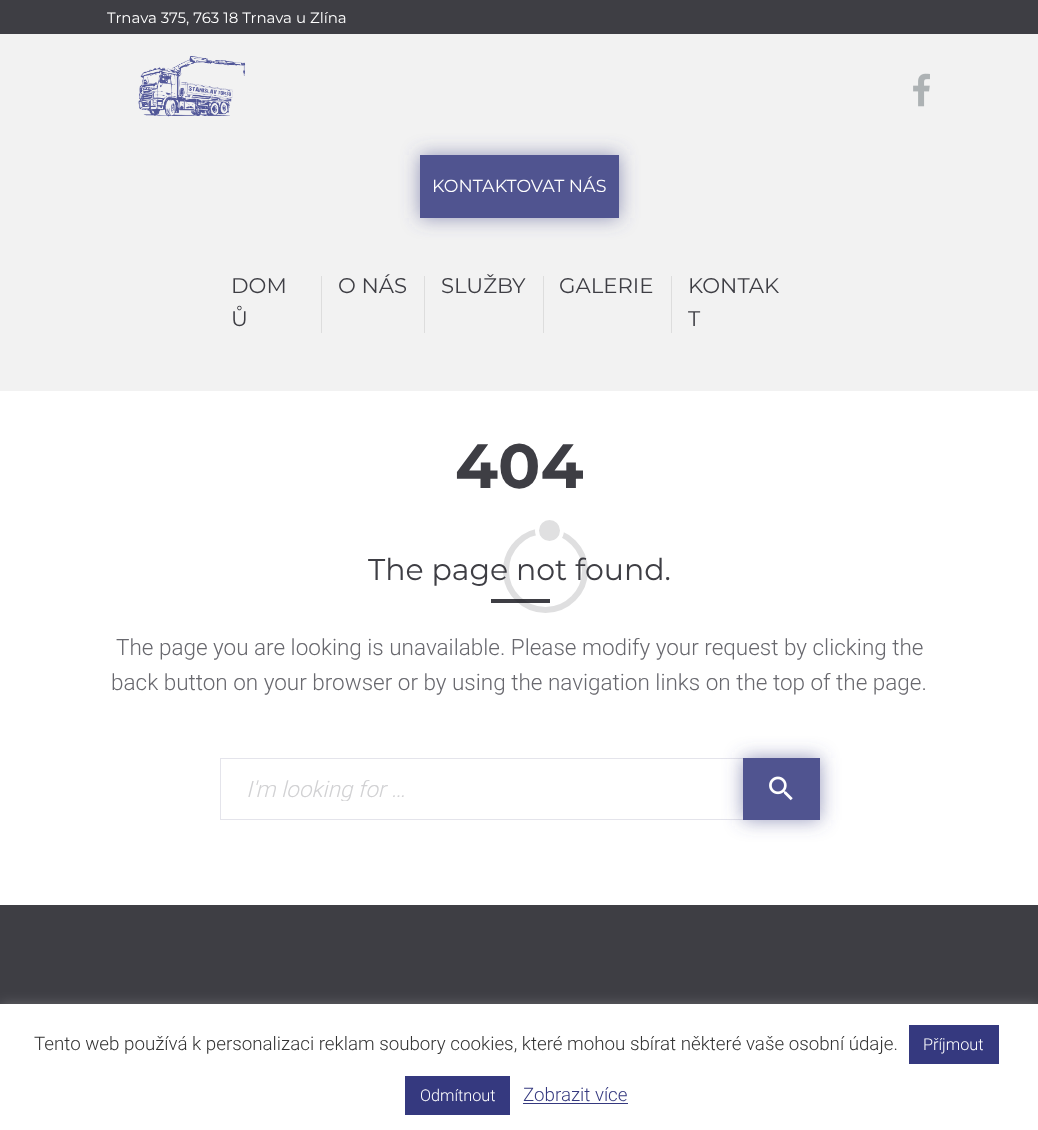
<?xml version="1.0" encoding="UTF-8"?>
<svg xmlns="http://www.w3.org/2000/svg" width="1038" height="1130">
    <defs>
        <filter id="blur1" x="-50%" y="-200%" width="200%" height="500%"><feGaussianBlur stdDeviation="9.5"/></filter>
        <clipPath id="clip1"><rect x="246" y="775" width="467" height="26"/></clipPath>
        <filter id="blur2" x="-50%" y="-200%" width="200%" height="500%"><feGaussianBlur stdDeviation="6"/></filter>
    </defs>
    <rect width="100%" height="100%" fill="#FFFFFF"/>
    <rect x="0" y="0" width="1038" height="34" fill="#3E3E44"/>
    <text x="107" y="23" font-family="Montserrat" font-size="15" fill="#FFFFFF">Trnava 375, 763 18 Trnava u Zlína</text>
    <rect x="0" y="34" width="1038" height="357" fill="#F2F2F2"/>
    <image x="138" y="56" width="108" height="61" href="img_01.png"/>
    <image x="913" y="73" width="17" height="34" href="img_02.png"/>
    <rect x="420" y="155" width="199" height="63" fill="#505490" fill-opacity="0.6" filter="url(#blur1)"/>
    <rect x="420" y="155" width="199" height="63" fill="#505490"/>
    <text x="432" y="192" font-family="Montserrat" font-size="17.5" fill="#FFFFFF">KONTAKTOVAT NÁS</text>
    <text font-family="Montserrat" font-size="21.25" fill="#3E3E44">
        <tspan x="231" y="293">DOM</tspan>
        <tspan x="231" y="326">Ů</tspan>
    </text>
    <rect x="321" y="276" width="1" height="57" fill="#DDDDDD"/>
    <text x="338" y="293" font-family="Montserrat" font-size="21.25" fill="#3E3E44">O NÁS</text>
    <rect x="424" y="276" width="1" height="57" fill="#DDDDDD"/>
    <text x="441" y="293" font-family="Montserrat" font-size="21.25" fill="#3E3E44">SLUŽBY</text>
    <rect x="543" y="276" width="1" height="57" fill="#DDDDDD"/>
    <text x="559" y="293" font-family="Montserrat" font-size="21.25" fill="#3E3E44">GALERIE</text>
    <rect x="671" y="276" width="1" height="57" fill="#DDDDDD"/>
    <text font-family="Montserrat" font-size="21.25" fill="#3E3E44">
        <tspan x="688" y="293">KONTAK</tspan>
        <tspan x="688" y="326">T</tspan>
    </text>
    <text x="455" y="488" font-family="Montserrat" font-size="62.5" font-weight="700" fill="#3E3E44">404</text>
    <text x="368" y="580" font-family="Montserrat" font-size="30" fill="#3E3E44">The page not found.</text>
    <rect x="491" y="599" width="59" height="4" fill="#3E3E44"/>
    <text x="116" y="655" font-family="Roboto" font-size="22.5" font-weight="300" fill="#68686E">The page you are looking is unavailable. Please modify your request by clicking the</text>
    <text x="111" y="690" font-family="Roboto" font-size="22.5" font-weight="300" fill="#68686E">back button on your browser or by using the navigation links on the top of the page.</text>
    <rect x="220" y="758" width="523" height="1" fill="#E4E4EB"/>
    <rect x="220" y="819" width="523" height="1" fill="#E4E4EB"/>
    <rect x="220" y="758" width="1" height="62" fill="#E4E4EB"/>
    <g clip-path="url(#clip1)">
        <text x="246" y="797" font-family="Roboto" font-size="22.5" font-weight="300" font-style="italic" fill="#D1D1D3">I'm looking for …</text>
    </g>
    <rect x="743" y="758" width="77" height="62" fill="#505490" fill-opacity="0.6" filter="url(#blur1)"/>
    <rect x="743" y="758" width="77" height="62" fill="#505490"/>
    <image x="769" y="776" width="24" height="25" href="img_03.png"/>
    <rect x="0" y="905" width="1038" height="99" fill="#3E3E44"/>
    <circle cx="545.5" cy="570.5" r="39.5" fill="none" stroke="#1F1F26" stroke-opacity="0.14" stroke-width="6"/>
    <circle cx="549.5" cy="530.5" r="12.5" fill="#E0E0E1" stroke="#FFFFFF" stroke-width="4"/>
    <rect x="0" y="1003" width="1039" height="126" fill="#ACABAB" fill-opacity="0.3" filter="url(#blur2)"/>
    <rect x="0" y="1004" width="1038" height="126" fill="#FFFFFF"/>
    <text x="34" y="1050" font-family="Roboto" font-size="18.75" font-weight="300" fill="#333333">Tento web používá k personalizaci reklam soubory cookies, které mohou sbírat některé vaše osobní údaje.</text>
    <rect x="909" y="1025" width="90" height="39" fill="#35397F"/>
    <text x="923" y="1050" font-family="Roboto" font-size="16.25" font-weight="300" fill="#FFFFFF">Příjmout</text>
    <rect x="405" y="1076" width="105" height="39" fill="#35397F"/>
    <text x="420" y="1101" font-family="Roboto" font-size="16.25" font-weight="300" fill="#FFFFFF">Odmítnout</text>
    <text x="523" y="1101" font-family="Roboto" font-size="18.75" font-weight="300" fill="#35397F">Zobrazit více</text>
    <rect x="523" y="1103" width="105" height="1" fill="#35397F"/>
</svg>
